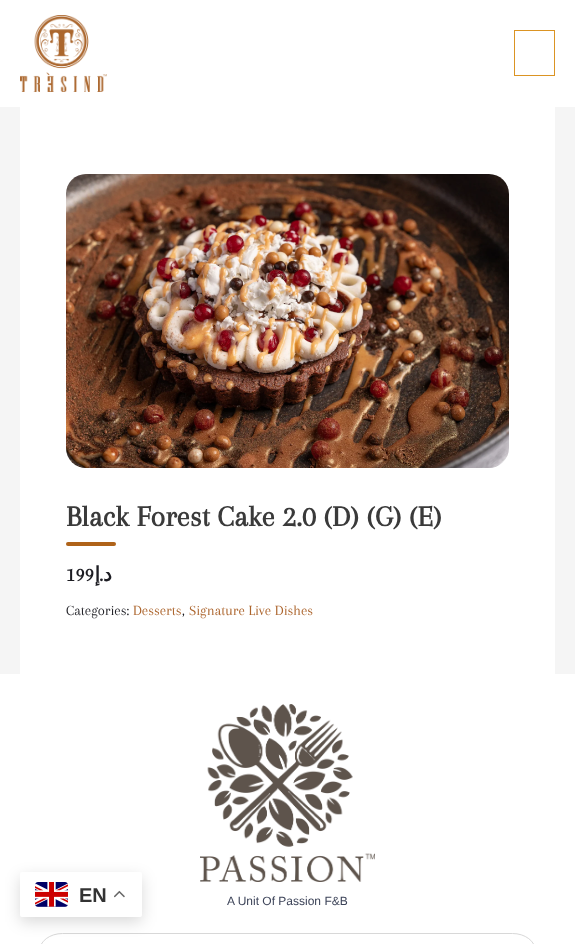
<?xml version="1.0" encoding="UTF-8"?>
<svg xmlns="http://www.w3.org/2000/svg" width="575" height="944">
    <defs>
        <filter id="blur1" x="-50%" y="-200%" width="200%" height="500%"><feGaussianBlur stdDeviation="7.5"/></filter>
    </defs>
    <rect width="100%" height="100%" fill="#F5F5F5"/>
    <rect x="0" y="0" width="575" height="107" fill="#FFFFFF"/>
    <image x="20" y="15" width="87" height="77" href="img_01.png"/>
    <rect x="514.5" y="30.5" width="40" height="45" fill="none" stroke="#DB9423"/>
    <rect x="20" y="107" width="535" height="567" fill="#FFFFFF"/>
    <image x="66" y="174" width="443" height="294" href="img_02.png"/>
    <text x="66" y="526" font-family="Arapey" font-size="30" font-weight="700" fill="#3A3A3A">Black Forest Cake 2.0 (D) (G) (E)</text>
    <rect x="66" y="542" width="50" height="4" rx="2" fill="#AF6319"/>
    <text x="66" y="581" font-family="Arapey" font-size="20" font-weight="700" fill="#1D1D23">199</text>
    <text x="100" y="581" font-family="DejaVu Sans" font-size="20" font-weight="700" direction="rtl" fill="#1D1D23">إ</text>
    <text x="103" y="581" font-family="Arapey" font-size="20" font-weight="700" direction="rtl" fill="#1D1D23">.</text>
    <text x="112" y="581" font-family="DejaVu Sans" font-size="20" font-weight="700" direction="rtl" fill="#1D1D23">د</text>
    <text x="66" y="615" font-family="Arapey" font-size="14.5" fill="#1D1D23">Categories:</text>
    <text x="133" y="615" font-family="Arapey" font-size="14.5" fill="#AC642C">Desserts</text>
    <text x="182" y="615" font-family="Arapey" font-size="14.5" fill="#1D1D23">,</text>
    <text x="189" y="615" font-family="Arapey" font-size="14.5" fill="#AC642C">Signature Live Dishes</text>
    <rect x="0" y="674" width="575" height="270" fill="#FFFFFF"/>
    <image x="200" y="704" width="175" height="178" href="img_03.png"/>
    <text x="227" y="905" font-family="Liberation Sans" font-size="12" fill="#3D4459">A Unit Of Passion F&amp;B</text>
    <rect x="39.5" y="933.5" width="496" height="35" rx="23" fill="none" stroke="#D8D8D8"/>
    <rect x="20" y="877" width="122" height="45" rx="2" fill="#000000" fill-opacity="0.15" filter="url(#blur1)"/>
    <rect x="20" y="872" width="122" height="45" rx="2" fill="#FFFFFF"/>
    <image x="35" y="882" width="33" height="25" href="img_04.png"/>
    <text x="79" y="902" font-family="Liberation Sans" font-size="20" font-weight="700" fill="#333333">EN</text>
    <image x="114" y="890" width="11" height="8" href="img_05.png"/>
</svg>
